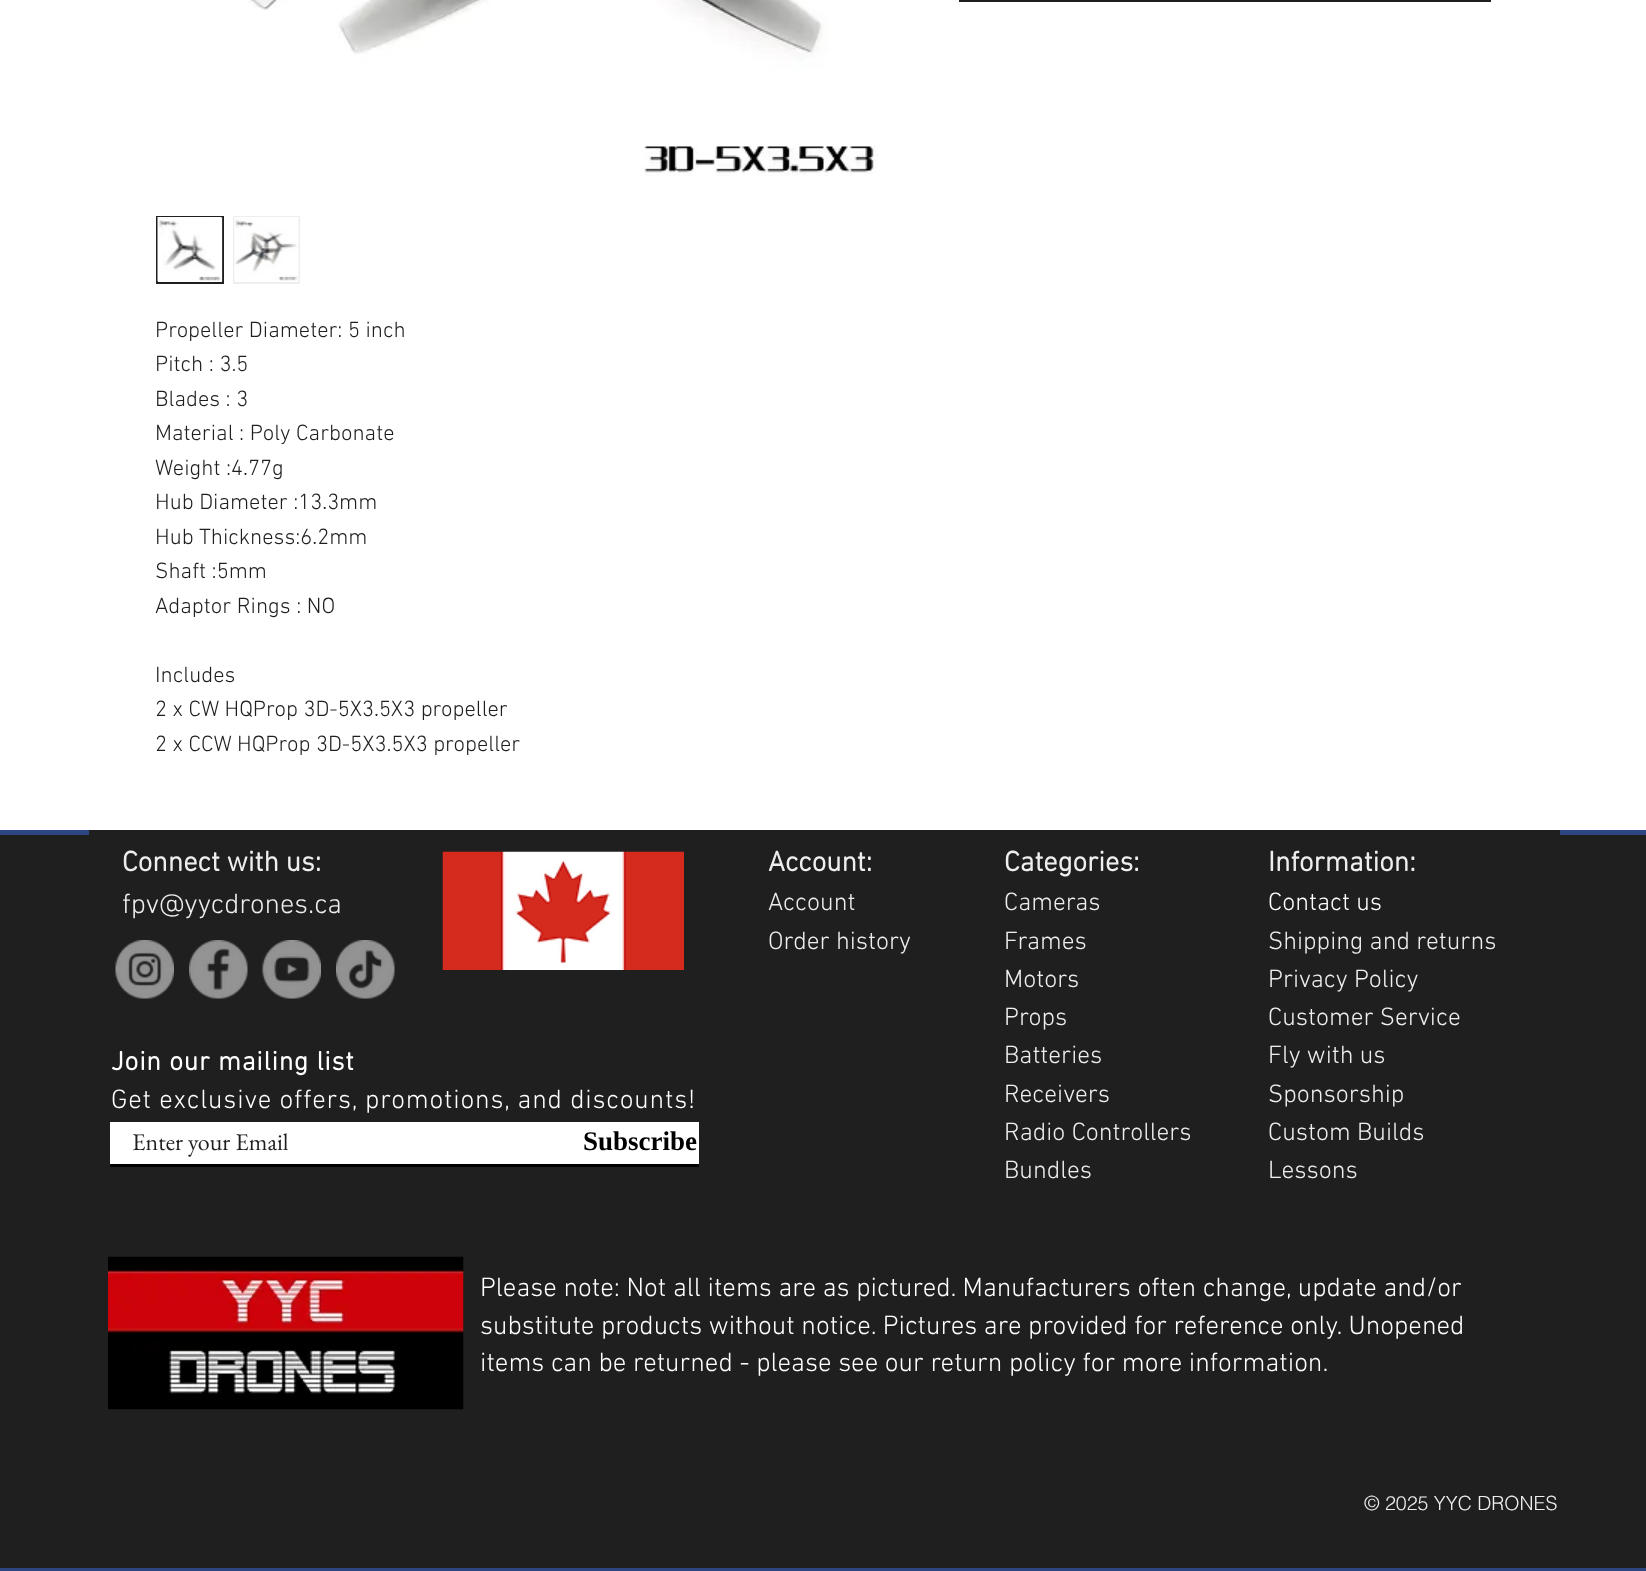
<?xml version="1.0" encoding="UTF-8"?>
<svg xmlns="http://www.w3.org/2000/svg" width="1646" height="1571">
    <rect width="100%" height="100%" fill="#FFFFFF"/>
    <rect x="959" y="0" width="532" height="2" fill="#1F1F1F"/>
    <image x="248" y="0" width="630" height="176" href="img_01.png"/>
    <rect x="157" y="217" width="66" height="66" fill="none" stroke="#1F1F1F" stroke-width="2"/>
    <image x="157" y="217" width="66" height="65" href="img_02.png"/>
    <rect x="234" y="217" width="65" height="66" fill="none" stroke="#EEEEEE" stroke-width="2"/>
    <image x="234" y="217" width="65" height="64" href="img_03.png"/>
    <text font-family="'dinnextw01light'" font-size="22.5" font-weight="300" fill="#1F1F1F">
        <tspan x="155" y="337">Propeller Diameter: 5 inch</tspan>
        <tspan x="155" y="371">Pitch : 3.5</tspan>
        <tspan x="155" y="406">Blades : 3</tspan>
        <tspan x="155" y="440">Material : Poly Carbonate</tspan>
        <tspan x="155" y="475">Weight :4.77g</tspan>
        <tspan x="155" y="509">Hub Diameter :13.3mm</tspan>
        <tspan x="155" y="544">Hub Thickness:6.2mm</tspan>
        <tspan x="155" y="578">Shaft :5mm</tspan>
        <tspan x="155" y="613">Adaptor Rings : NO</tspan>
    </text>
    <text font-family="'dinnextw01light'" font-size="22.5" font-weight="300" fill="#1F1F1F">
        <tspan x="155" y="682">Includes</tspan>
        <tspan x="155" y="716">2 x CW HQProp 3D-5X3.5X3 propeller</tspan>
        <tspan x="155" y="751">2 x CCW HQProp 3D-5X3.5X3 propeller</tspan>
    </text>
    <rect x="0" y="835" width="1646" height="733" fill="#1F1F1F"/>
    <rect x="0" y="830" width="1646" height="5" fill="#2D4580"/>
    <rect x="0" y="1568" width="1646" height="3" fill="#2D4580"/>
    <rect x="89" y="830" width="1471" height="5" fill="#1F1F1F"/>
    <text x="122" y="871" font-family="'dinnextw01light'" font-size="28.5" font-weight="700" fill="#EEEEEE">Connect with us:</text>
    <text x="122" y="913" font-family="'dinnextw01light'" font-size="28.5" font-weight="300" fill="#EEEEEE">fpv@yycdrones.ca</text>
    <image x="442" y="851" width="242" height="119" href="img_04.png"/>
    <text x="768" y="871" font-family="'dinnextw01light'" font-size="28.5" font-weight="700" fill="#EEEEEE">Account:</text>
    <text font-family="'dinnextw01light'" font-size="25.5" font-weight="300" fill="#EEEEEE">
        <tspan x="768" y="910">Account</tspan>
        <tspan x="768" y="949">Order history</tspan>
    </text>
    <text x="1004" y="871" font-family="'dinnextw01light'" font-size="28.5" font-weight="700" fill="#EEEEEE">Categories:</text>
    <text font-family="'dinnextw01light'" font-size="25.5" font-weight="300" fill="#EEEEEE">
        <tspan x="1004" y="910">Cameras</tspan>
        <tspan x="1004" y="949">Frames</tspan>
        <tspan x="1004" y="987">Motors</tspan>
        <tspan x="1004" y="1025">Props</tspan>
        <tspan x="1004" y="1063">Batteries</tspan>
        <tspan x="1004" y="1102">Receivers</tspan>
        <tspan x="1004" y="1140">Radio Controllers</tspan>
        <tspan x="1004" y="1178">Bundles</tspan>
    </text>
    <text x="1268" y="871" font-family="'dinnextw01light'" font-size="28.5" font-weight="700" fill="#EEEEEE">Information:</text>
    <text x="1268" y="910" font-family="'dinnextw01light'" font-size="25.5" font-weight="300" fill="#FFFFFF">Contact us</text>
    <text font-family="'dinnextw01light'" font-size="25.5" font-weight="300" fill="#EEEEEE">
        <tspan x="1268" y="949">Shipping and returns</tspan>
        <tspan x="1268" y="987">Privacy Policy</tspan>
        <tspan x="1268" y="1025">Customer Service</tspan>
        <tspan x="1268" y="1063">Fly with us</tspan>
        <tspan x="1268" y="1102">Sponsorship</tspan>
        <tspan x="1268" y="1140">Custom Builds</tspan>
        <tspan x="1268" y="1178">Lessons</tspan>
    </text>
    <image x="115" y="940" width="59" height="59" href="img_05.png"/>
    <image x="189" y="940" width="59" height="59" href="img_06.png"/>
    <image x="262" y="940" width="59" height="59" href="img_07.png"/>
    <image x="336" y="940" width="59" height="59" href="img_08.png"/>
    <text x="111" y="1070" font-family="'dinnextw01light'" font-size="27" font-weight="700" letter-spacing="0.8" fill="#FFFFFF">Join our mailing list</text>
    <text x="111" y="1108" font-family="'dinnextw01light'" font-size="27" font-weight="300" letter-spacing="0.8" fill="#FFFFFF">Get exclusive offers, promotions, and discounts!</text>
    <rect x="110" y="1122" width="589" height="42" fill="#FFFFFF"/>
    <rect x="110" y="1164" width="589" height="3" fill="#000000"/>
    <text x="132" y="1150" font-family="EB Garamond" font-size="24" fill="#1F1F1F">Enter your Email</text>
    <text x="583" y="1150" font-family="Liberation Serif" font-size="27" font-weight="700" fill="#000000">Subscribe</text>
    <image x="108" y="1256" width="356" height="154" href="img_09.png"/>
    <text font-family="'dinnextw01light'" font-size="27" font-weight="300" fill="#FFFFFF">
        <tspan x="480" y="1296">Please note: Not all items are as pictured. Manufacturers often change, update and/or</tspan>
        <tspan x="480" y="1334">substitute products without notice. Pictures are provided for reference only. Unopened</tspan>
        <tspan x="480" y="1371">items can be returned - please see our return policy for more information.</tspan>
    </text>
    <text x="1364" y="1510" font-family="helvetica" font-size="19.5" font-weight="300" fill="#EEEEEE">© 2025 YYC DRONES</text>
</svg>
